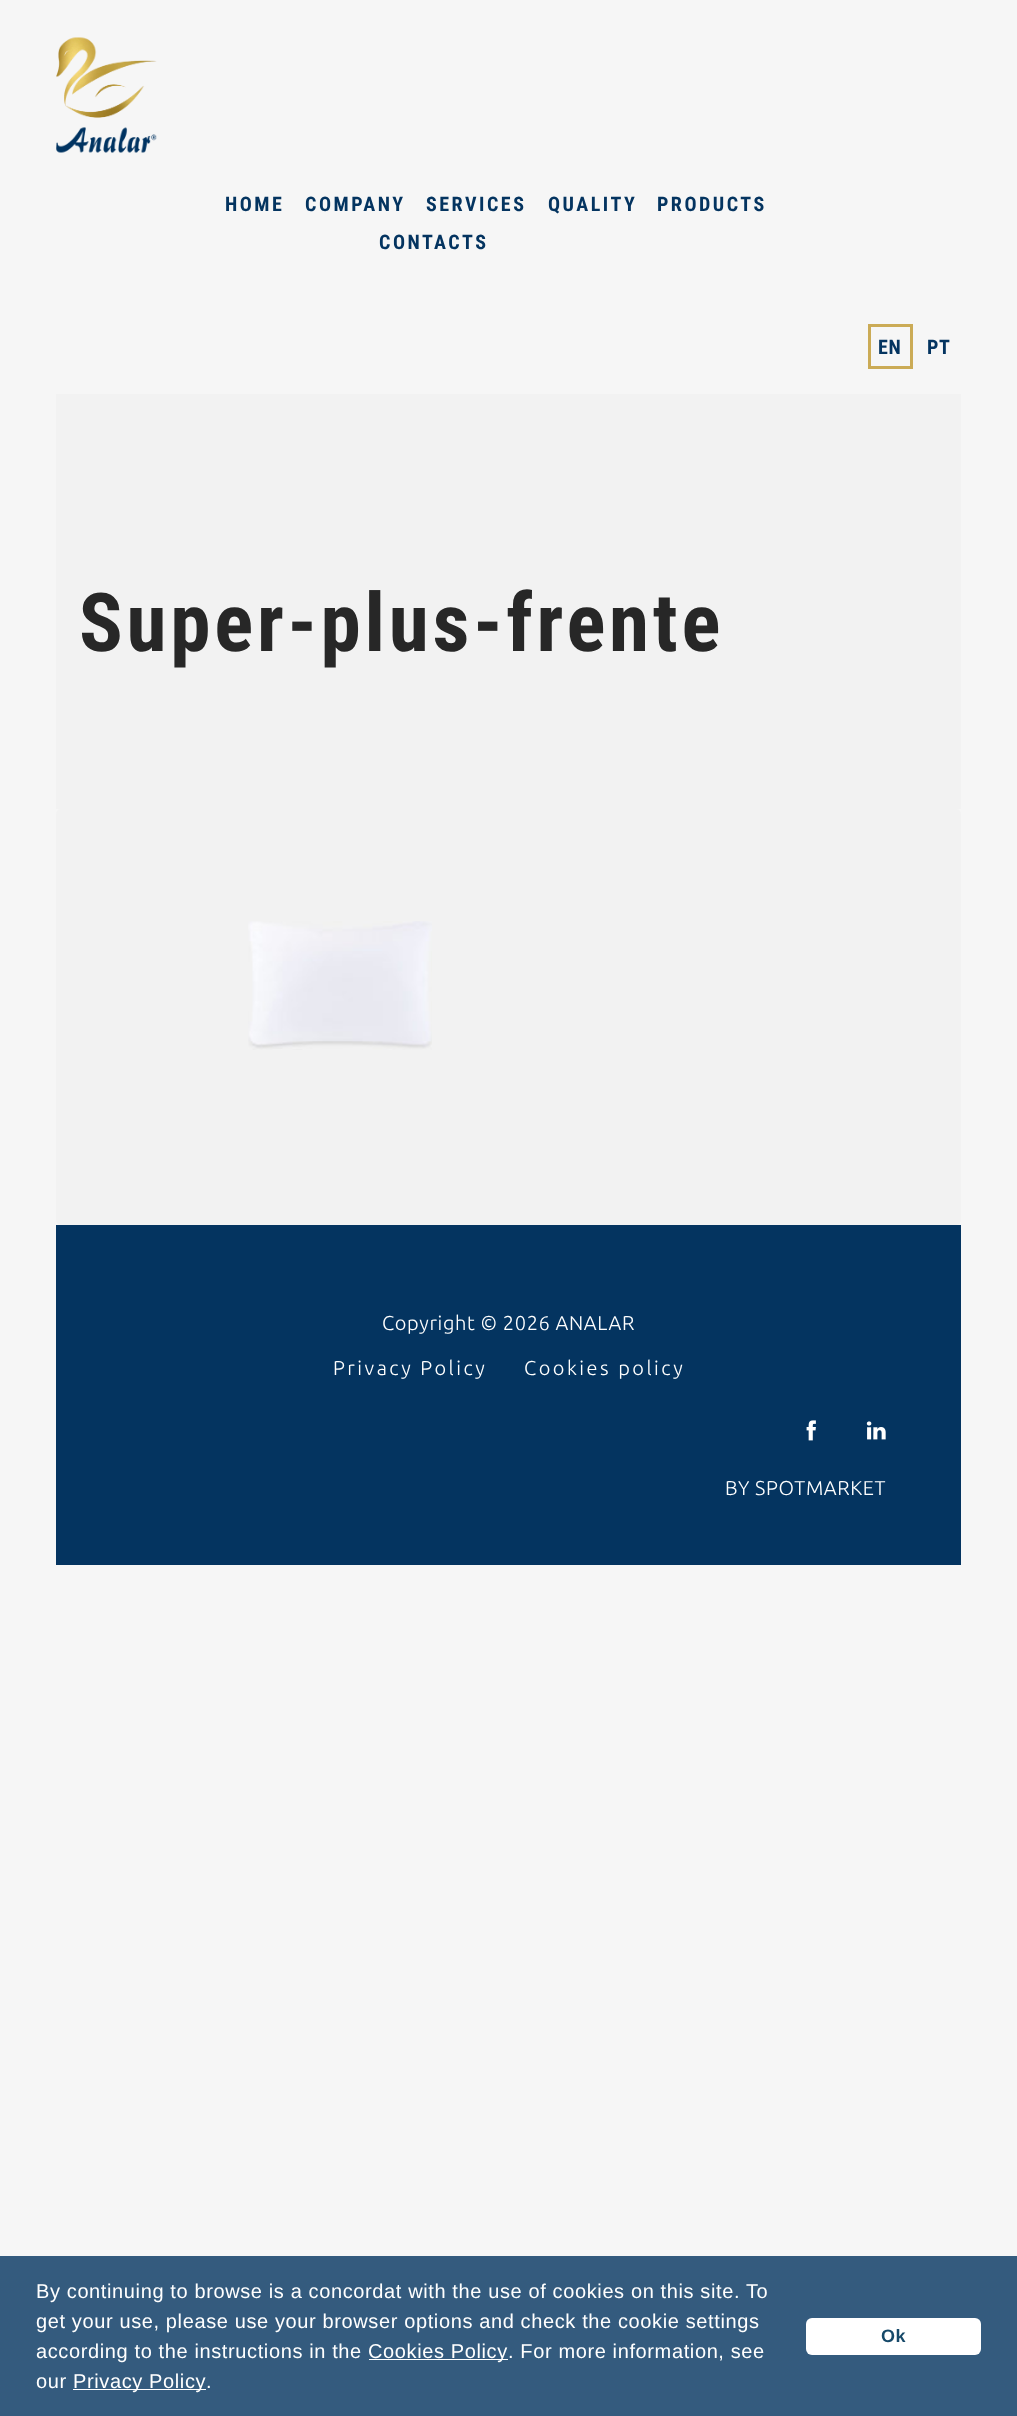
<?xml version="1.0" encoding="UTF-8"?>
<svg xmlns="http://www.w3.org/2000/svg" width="1017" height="2416">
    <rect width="100%" height="100%" fill="#F6F6F6"/>
    <image x="56" y="37" width="101" height="116" href="img_01.png"/>
    <text x="225" y="211" font-family="Roboto Condensed" font-size="20" font-weight="700" letter-spacing="2.5" fill="#043460">HOME</text>
    <text x="305" y="211" font-family="Roboto Condensed" font-size="20" font-weight="700" letter-spacing="2.5" fill="#043460">COMPANY</text>
    <text x="426" y="211" font-family="Roboto Condensed" font-size="20" font-weight="700" letter-spacing="2.5" fill="#043460">SERVICES</text>
    <text x="548" y="211" font-family="Roboto Condensed" font-size="20" font-weight="700" letter-spacing="2.5" fill="#043460">QUALITY</text>
    <text x="657" y="211" font-family="Roboto Condensed" font-size="20" font-weight="700" letter-spacing="2.5" fill="#043460">PRODUCTS</text>
    <text x="379" y="249" font-family="Roboto Condensed" font-size="20" font-weight="700" letter-spacing="2.5" fill="#043460">CONTACTS</text>
    <rect x="869.5" y="325.5" width="42" height="42" fill="none" stroke="#CBAB56" stroke-width="3"/>
    <text x="878" y="354" font-family="Roboto Condensed" font-size="20" font-weight="700" letter-spacing="0.62" fill="#043460">EN</text>
    <text x="927" y="354" font-family="Roboto Condensed" font-size="20" font-weight="700" letter-spacing="0.62" fill="#043460">PT</text>
    <rect x="56" y="394" width="905" height="415" fill="#F2F2F2"/>
    <text x="79" y="651" font-family="Roboto Condensed" font-size="81.25" font-weight="700" letter-spacing="3.75" fill="#272727">Super-plus-frente</text>
    <rect x="56" y="809" width="905" height="416" rx="5" fill="#F2F2F2"/>
    <image x="248" y="921" width="184" height="129" href="img_02.png"/>
    <rect x="56" y="1225" width="905" height="340" fill="#043460"/>
    <text x="382" y="1330" font-family="Ubuntu" font-size="20" font-weight="300" letter-spacing="0.62" fill="#FFFFFF">Copyright © 2026 ANALAR</text>
    <text x="333" y="1375" font-family="Ubuntu" font-size="20" font-weight="300" letter-spacing="2.5" fill="#FFFFFF">Privacy Policy</text>
    <text x="524" y="1375" font-family="Ubuntu" font-size="20" font-weight="300" letter-spacing="2.5" fill="#FFFFFF">Cookies policy</text>
    <image x="806" y="1420" width="10" height="21" href="img_03.png"/>
    <image x="866" y="1421" width="20" height="19" href="img_04.png"/>
    <text x="725" y="1495" font-family="Ubuntu" font-size="20" font-weight="300" letter-spacing="0.62" fill="#FFFFFF">BY SPOTMARKET</text>
    <rect x="0" y="2256" width="1017" height="160" fill="#345B7E"/>
    <text font-family="Liberation Sans" font-size="20" letter-spacing="0.62" fill="#FFFFFF">
        <tspan x="36" y="2298">By continuing to browse is a concordat with the use of cookies on this site. To</tspan>
        <tspan x="36" y="2328">get your use, please use your browser options and check the cookie settings</tspan>
        <tspan x="36" y="2358">according to the instructions in the</tspan>
    </text>
    <rect x="369" y="2359" width="139" height="1" fill="#FFFFFF"/>
    <text x="368" y="2358" font-family="Liberation Sans" font-size="20" letter-spacing="0.62" fill="#FFFFFF">Cookies Policy</text>
    <text x="508" y="2358" font-family="Liberation Sans" font-size="20" letter-spacing="0.62" fill="#FFFFFF">. For more information, see</text>
    <text x="36" y="2388" font-family="Liberation Sans" font-size="20" letter-spacing="0.62" fill="#FFFFFF">our</text>
    <rect x="73" y="2389" width="133" height="1" fill="#FFFFFF"/>
    <text x="73" y="2388" font-family="Liberation Sans" font-size="20" letter-spacing="0.62" fill="#FFFFFF">Privacy Policy</text>
    <text x="206" y="2388" font-family="Liberation Sans" font-size="20" letter-spacing="0.62" fill="#FFFFFF">.</text>
    <rect x="806" y="2318" width="175" height="37" rx="6" fill="#FFFFFF"/>
    <text x="881" y="2342" font-family="Liberation Sans" font-size="18" font-weight="700" letter-spacing="0.62" fill="#164969">Ok</text>
</svg>
